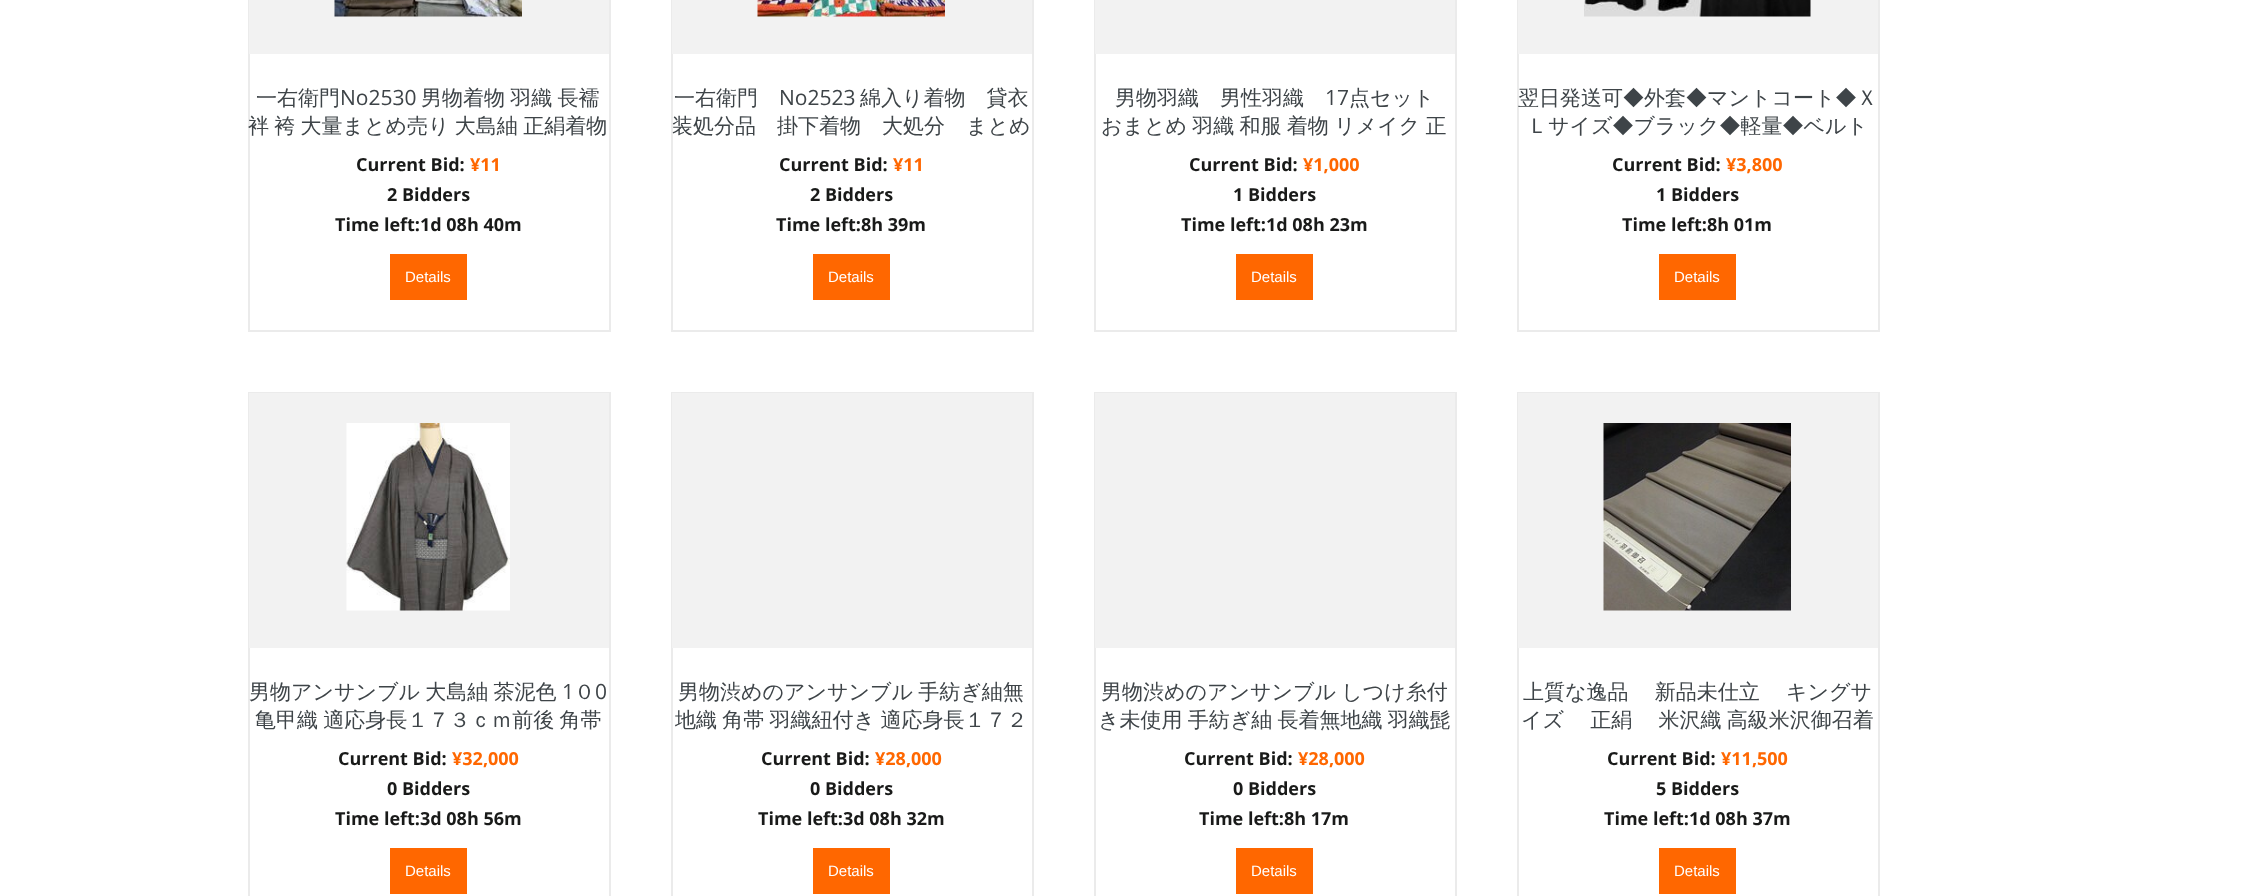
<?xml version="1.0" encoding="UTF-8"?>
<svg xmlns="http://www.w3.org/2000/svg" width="2248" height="896">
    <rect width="100%" height="100%" fill="#FFFFFF"/>
    <rect x="249" y="-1" width="361" height="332" fill="none" stroke="#EBEBEB" stroke-width="2"/>
    <rect x="249" y="0" width="360" height="54" fill="#F2F2F2"/>
    <image x="334" y="0" width="188" height="17" href="img_01.png"/>
    <text x="256" y="105" font-family="WenQuanYi Zen Hei" font-size="21" font-weight="500" fill="#3E4448">一右衛門</text>
    <text x="340" y="105" font-family="Open Sans" font-size="21" fill="#3E4448">No2530</text>
    <text x="421" y="105" word-spacing="-1" font-family="WenQuanYi Zen Hei" font-size="21" font-weight="500" fill="#3E4448">男物着物 羽織 長襦</text>
    <text x="248" y="133" word-spacing="-1" font-family="WenQuanYi Zen Hei" font-size="21" font-weight="500" fill="#3E4448">袢 袴 大量まとめ売り 大島紬 正絹着物</text>
    <text x="356" y="171" font-family="Open Sans" font-size="18" font-weight="700" fill="#191A19">Current Bid:</text>
    <text x="470" y="171" font-family="Open Sans" font-size="18" font-weight="700" fill="#FF6700">¥11</text>
    <text x="387" y="201" font-family="Open Sans" font-size="18" font-weight="700" fill="#191A19">2 Bidders</text>
    <text x="335" y="231" font-family="Open Sans" font-size="18" font-weight="700" fill="#191A19">Time left:1d 08h 40m</text>
    <rect x="390" y="254" width="77" height="46" fill="#FF6700"/>
    <text x="405" y="282" font-family="Liberation Sans" font-size="15" fill="#FFFFFF">Details</text>
    <rect x="672" y="-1" width="361" height="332" fill="none" stroke="#EBEBEB" stroke-width="2"/>
    <rect x="672" y="0" width="360" height="54" fill="#F2F2F2"/>
    <image x="757" y="0" width="188" height="17" href="img_02.png"/>
    <text x="674" y="105" font-family="WenQuanYi Zen Hei" font-size="21" font-weight="500" fill="#3E4448">一右衛門</text>
    <text x="779" y="105" font-family="Open Sans" font-size="21" fill="#3E4448">No2523</text>
    <text x="860" y="105" font-family="WenQuanYi Zen Hei" font-size="21" font-weight="500" fill="#3E4448">綿入り着物　貸衣</text>
    <text x="672" y="133" font-family="WenQuanYi Zen Hei" font-size="21" font-weight="500" fill="#3E4448">装処分品　掛下着物　大処分　まとめ</text>
    <text x="779" y="171" font-family="Open Sans" font-size="18" font-weight="700" fill="#191A19">Current Bid:</text>
    <text x="893" y="171" font-family="Open Sans" font-size="18" font-weight="700" fill="#FF6700">¥11</text>
    <text x="810" y="201" font-family="Open Sans" font-size="18" font-weight="700" fill="#191A19">2 Bidders</text>
    <text x="776" y="231" font-family="Open Sans" font-size="18" font-weight="700" fill="#191A19">Time left:8h 39m</text>
    <rect x="813" y="254" width="77" height="46" fill="#FF6700"/>
    <text x="828" y="282" font-family="Liberation Sans" font-size="15" fill="#FFFFFF">Details</text>
    <rect x="1095" y="-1" width="361" height="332" fill="none" stroke="#EBEBEB" stroke-width="2"/>
    <rect x="1095" y="0" width="360" height="54" fill="#F2F2F2"/>
    <text x="1115" y="105" font-family="WenQuanYi Zen Hei" font-size="21" font-weight="500" fill="#3E4448">男物羽織　男性羽織</text>
    <text x="1325" y="105" font-family="Open Sans" font-size="21" fill="#3E4448">17</text>
    <text x="1349" y="105" font-family="WenQuanYi Zen Hei" font-size="21" font-weight="500" fill="#3E4448">点セット</text>
    <text x="1101" y="133" word-spacing="-1" font-family="WenQuanYi Zen Hei" font-size="21" font-weight="500" fill="#3E4448">おまとめ 羽織 和服 着物 リメイク 正</text>
    <text x="1189" y="171" font-family="Open Sans" font-size="18" font-weight="700" fill="#191A19">Current Bid:</text>
    <text x="1303" y="171" font-family="Open Sans" font-size="18" font-weight="700" fill="#FF6700">¥1,000</text>
    <text x="1233" y="201" font-family="Open Sans" font-size="18" font-weight="700" fill="#191A19">1 Bidders</text>
    <text x="1181" y="231" font-family="Open Sans" font-size="18" font-weight="700" fill="#191A19">Time left:1d 08h 23m</text>
    <rect x="1236" y="254" width="77" height="46" fill="#FF6700"/>
    <text x="1251" y="282" font-family="Liberation Sans" font-size="15" fill="#FFFFFF">Details</text>
    <rect x="1518" y="-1" width="361" height="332" fill="none" stroke="#EBEBEB" stroke-width="2"/>
    <rect x="1518" y="0" width="360" height="54" fill="#F2F2F2"/>
    <image x="1584" y="0" width="227" height="17" href="img_03.png"/>
    <text x="1518" y="105" font-family="WenQuanYi Zen Hei" font-size="21" font-weight="500" fill="#3E4448">翌日発送可◆外套◆マントコート◆Ｘ</text>
    <text x="1527" y="133" font-family="WenQuanYi Zen Hei" font-size="21" font-weight="500" fill="#3E4448">Ｌサイズ◆ブラック◆軽量◆ベルト</text>
    <text x="1612" y="171" font-family="Open Sans" font-size="18" font-weight="700" fill="#191A19">Current Bid:</text>
    <text x="1726" y="171" font-family="Open Sans" font-size="18" font-weight="700" fill="#FF6700">¥3,800</text>
    <text x="1656" y="201" font-family="Open Sans" font-size="18" font-weight="700" fill="#191A19">1 Bidders</text>
    <text x="1622" y="231" font-family="Open Sans" font-size="18" font-weight="700" fill="#191A19">Time left:8h 01m</text>
    <rect x="1659" y="254" width="77" height="46" fill="#FF6700"/>
    <text x="1674" y="282" font-family="Liberation Sans" font-size="15" fill="#FFFFFF">Details</text>
    <rect x="249" y="393" width="361" height="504" fill="none" stroke="#EBEBEB" stroke-width="2"/>
    <rect x="249" y="393" width="360" height="255" fill="#F2F2F2"/>
    <image x="346" y="423" width="164" height="188" href="img_04.png"/>
    <text x="249" y="699" word-spacing="-1" font-family="WenQuanYi Zen Hei" font-size="21" font-weight="500" fill="#3E4448">男物アンサンブル 大島紬 茶泥色</text>
    <text x="562" y="699" font-family="Open Sans" font-size="21" fill="#3E4448">1</text>
    <text x="574" y="699" font-family="WenQuanYi Zen Hei" font-size="21" font-weight="500" fill="#3E4448">０</text>
    <text x="595" y="699" font-family="Open Sans" font-size="21" fill="#3E4448">0</text>
    <text x="255" y="727" word-spacing="-1" font-family="WenQuanYi Zen Hei" font-size="21" font-weight="500" fill="#3E4448">亀甲織 適応身長１７３ｃｍ前後 角帯</text>
    <text x="338" y="765" font-family="Open Sans" font-size="18" font-weight="700" fill="#191A19">Current Bid:</text>
    <text x="452" y="765" font-family="Open Sans" font-size="18" font-weight="700" fill="#FF6700">¥32,000</text>
    <text x="387" y="795" font-family="Open Sans" font-size="18" font-weight="700" fill="#191A19">0 Bidders</text>
    <text x="335" y="825" font-family="Open Sans" font-size="18" font-weight="700" fill="#191A19">Time left:3d 08h 56m</text>
    <rect x="390" y="848" width="77" height="46" fill="#FF6700"/>
    <text x="405" y="876" font-family="Liberation Sans" font-size="15" fill="#FFFFFF">Details</text>
    <rect x="672" y="393" width="361" height="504" fill="none" stroke="#EBEBEB" stroke-width="2"/>
    <rect x="672" y="393" width="360" height="255" fill="#F2F2F2"/>
    <text x="678" y="699" word-spacing="-1" font-family="WenQuanYi Zen Hei" font-size="21" font-weight="500" fill="#3E4448">男物渋めのアンサンブル 手紡ぎ紬無</text>
    <text x="675" y="727" word-spacing="-1" font-family="WenQuanYi Zen Hei" font-size="21" font-weight="500" fill="#3E4448">地織 角帯 羽織紐付き 適応身長１７２</text>
    <text x="761" y="765" font-family="Open Sans" font-size="18" font-weight="700" fill="#191A19">Current Bid:</text>
    <text x="875" y="765" font-family="Open Sans" font-size="18" font-weight="700" fill="#FF6700">¥28,000</text>
    <text x="810" y="795" font-family="Open Sans" font-size="18" font-weight="700" fill="#191A19">0 Bidders</text>
    <text x="758" y="825" font-family="Open Sans" font-size="18" font-weight="700" fill="#191A19">Time left:3d 08h 32m</text>
    <rect x="813" y="848" width="77" height="46" fill="#FF6700"/>
    <text x="828" y="876" font-family="Liberation Sans" font-size="15" fill="#FFFFFF">Details</text>
    <rect x="1095" y="393" width="361" height="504" fill="none" stroke="#EBEBEB" stroke-width="2"/>
    <rect x="1095" y="393" width="360" height="255" fill="#F2F2F2"/>
    <text x="1101" y="699" word-spacing="-1" font-family="WenQuanYi Zen Hei" font-size="21" font-weight="500" fill="#3E4448">男物渋めのアンサンブル しつけ糸付</text>
    <text x="1098" y="727" word-spacing="-1" font-family="WenQuanYi Zen Hei" font-size="21" font-weight="500" fill="#3E4448">き未使用 手紡ぎ紬 長着無地織 羽織髭</text>
    <text x="1184" y="765" font-family="Open Sans" font-size="18" font-weight="700" fill="#191A19">Current Bid:</text>
    <text x="1298" y="765" font-family="Open Sans" font-size="18" font-weight="700" fill="#FF6700">¥28,000</text>
    <text x="1233" y="795" font-family="Open Sans" font-size="18" font-weight="700" fill="#191A19">0 Bidders</text>
    <text x="1199" y="825" font-family="Open Sans" font-size="18" font-weight="700" fill="#191A19">Time left:8h 17m</text>
    <rect x="1236" y="848" width="77" height="46" fill="#FF6700"/>
    <text x="1251" y="876" font-family="Liberation Sans" font-size="15" fill="#FFFFFF">Details</text>
    <rect x="1518" y="393" width="361" height="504" fill="none" stroke="#EBEBEB" stroke-width="2"/>
    <rect x="1518" y="393" width="360" height="255" fill="#F2F2F2"/>
    <image x="1603" y="423" width="188" height="188" href="img_05.png"/>
    <text x="1523" y="699" word-spacing="-1" font-family="WenQuanYi Zen Hei" font-size="21" font-weight="500" fill="#3E4448">上質な逸品　 新品未仕立 　キングサ</text>
    <text x="1521" y="727" word-spacing="-1" font-family="WenQuanYi Zen Hei" font-size="21" font-weight="500" fill="#3E4448">イズ 　正絹 　米沢織 高級米沢御召着</text>
    <text x="1607" y="765" font-family="Open Sans" font-size="18" font-weight="700" fill="#191A19">Current Bid:</text>
    <text x="1721" y="765" font-family="Open Sans" font-size="18" font-weight="700" fill="#FF6700">¥11,500</text>
    <text x="1656" y="795" font-family="Open Sans" font-size="18" font-weight="700" fill="#191A19">5 Bidders</text>
    <text x="1604" y="825" font-family="Open Sans" font-size="18" font-weight="700" fill="#191A19">Time left:1d 08h 37m</text>
    <rect x="1659" y="848" width="77" height="46" fill="#FF6700"/>
    <text x="1674" y="876" font-family="Liberation Sans" font-size="15" fill="#FFFFFF">Details</text>
</svg>
